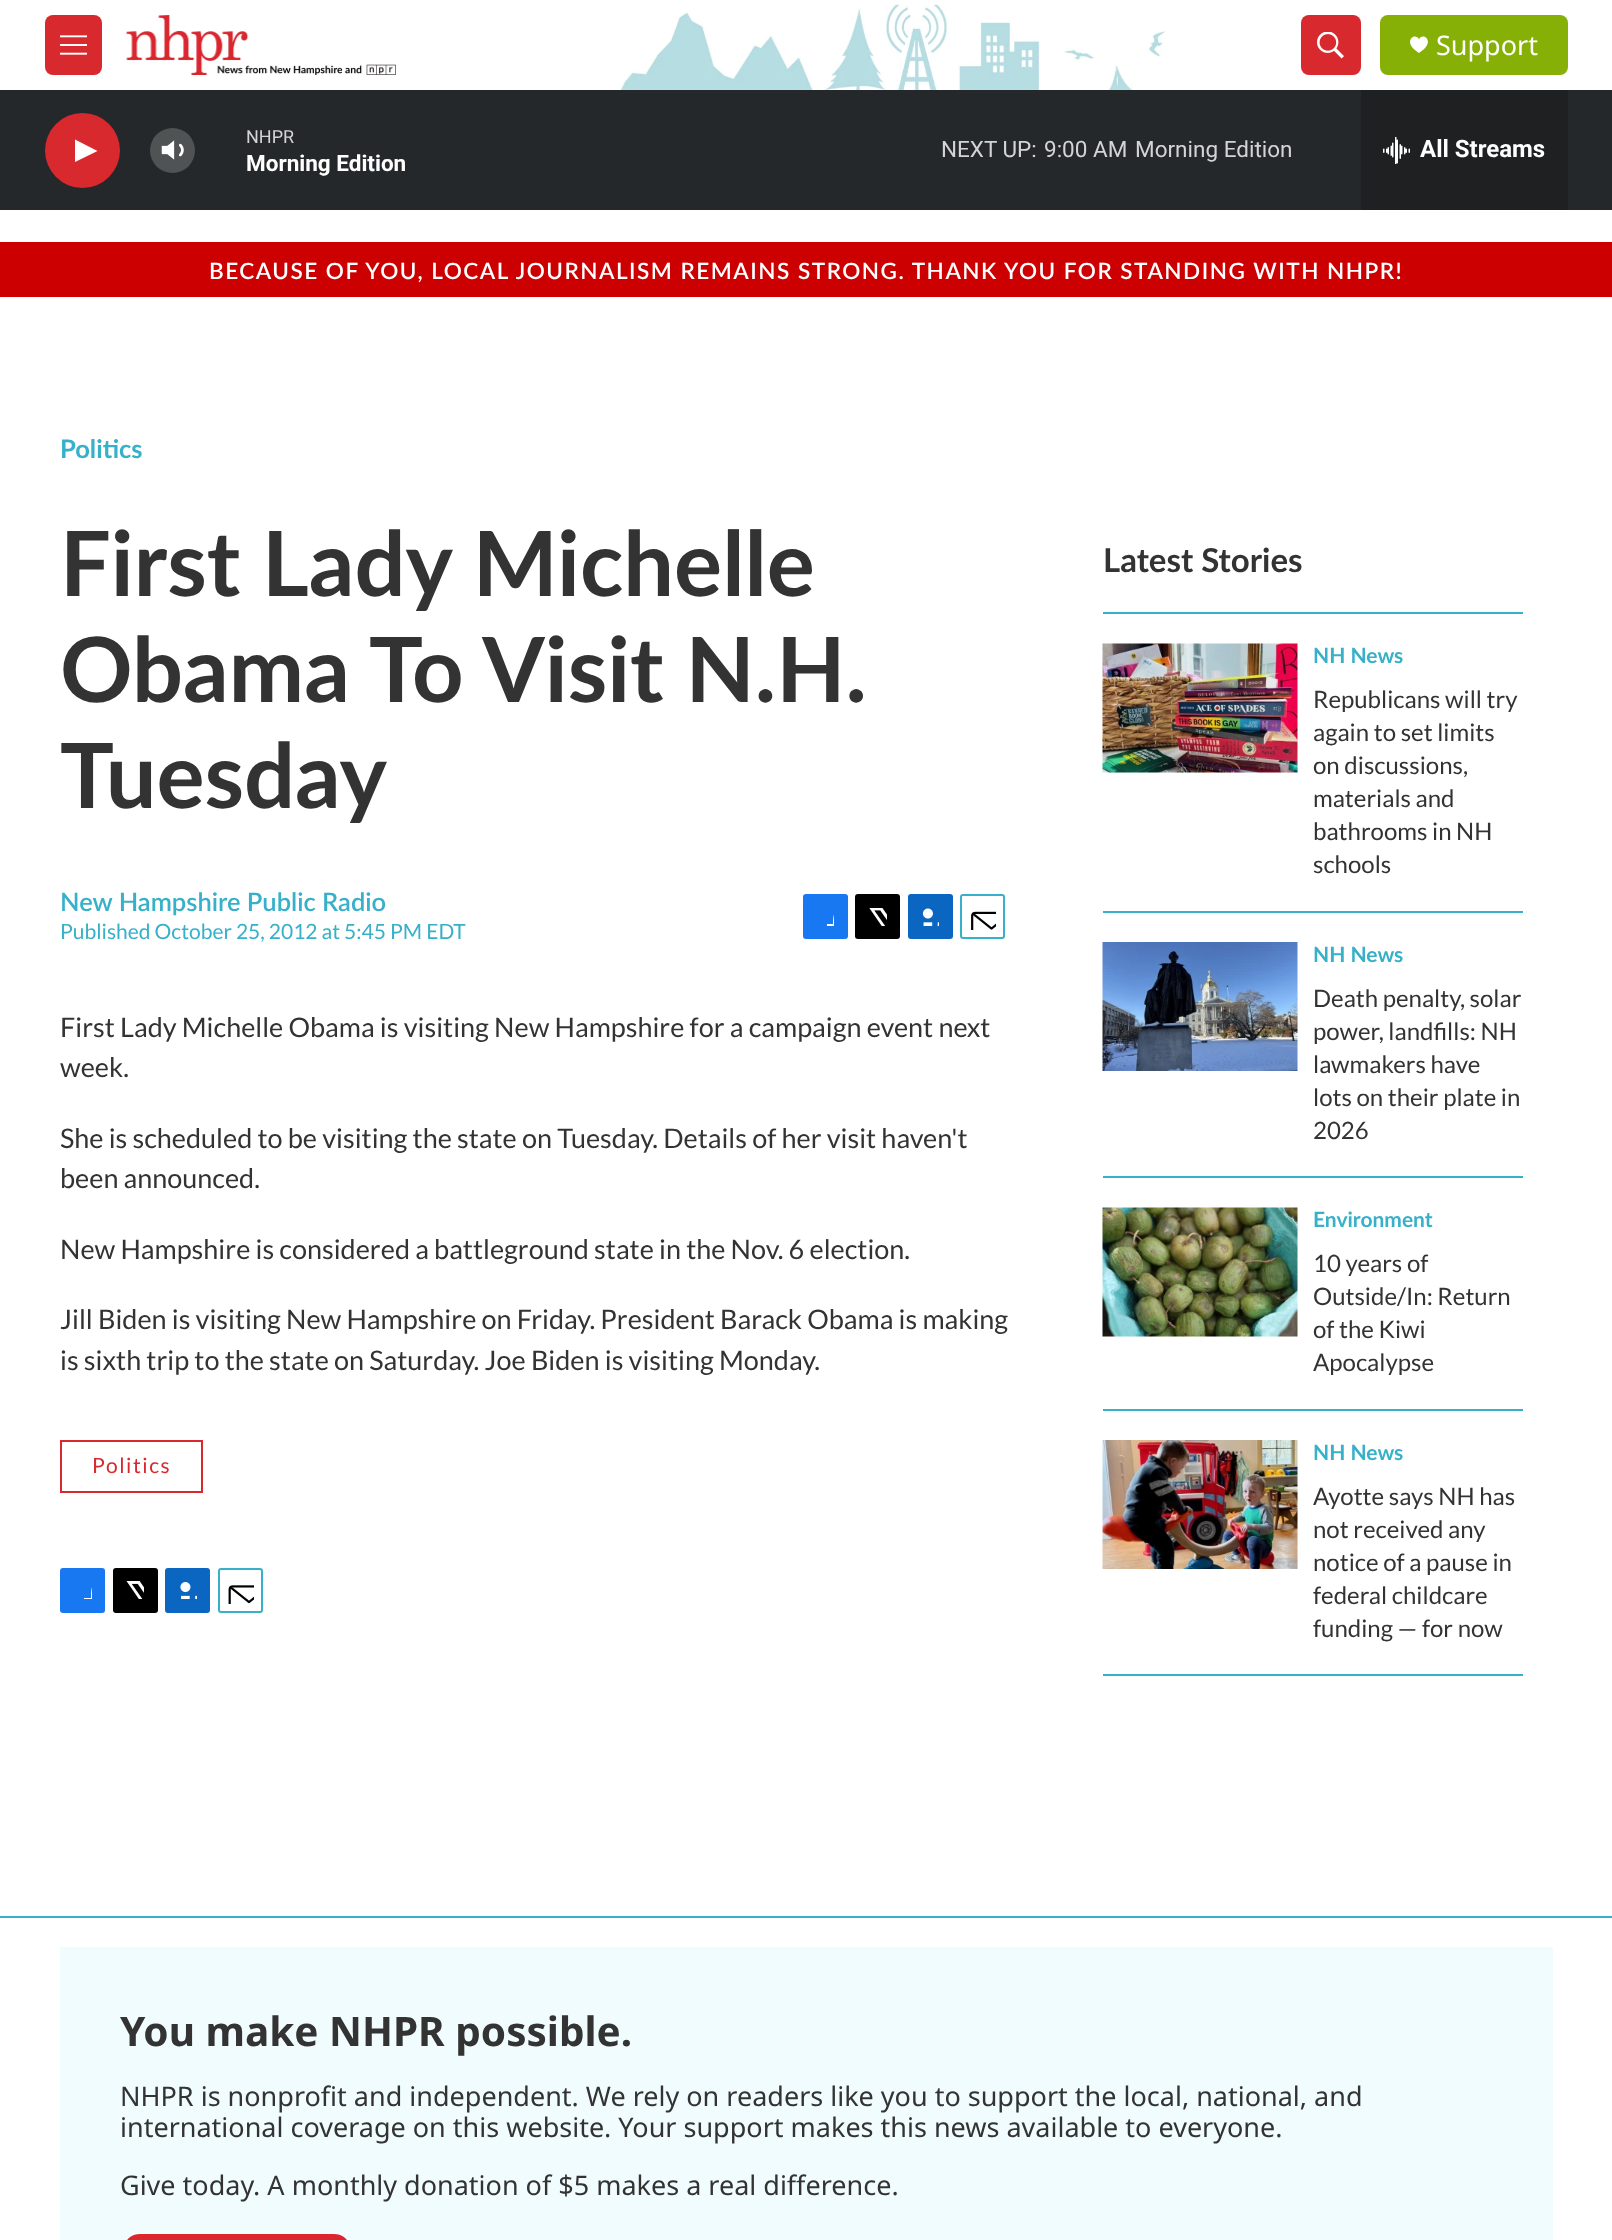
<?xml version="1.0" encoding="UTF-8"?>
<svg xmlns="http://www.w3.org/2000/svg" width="1612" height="2240">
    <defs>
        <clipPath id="clip1"><rect x="816" y="908" width="18" height="18"/></clipPath>
        <clipPath id="clip2"><rect x="74" y="1581" width="18" height="18"/></clipPath>
    </defs>
    <rect width="100%" height="100%" fill="#FFFFFF"/>
    <image x="620" y="4" width="546" height="86" href="img_01.png"/>
    <rect x="45" y="15" width="57" height="60" rx="8" fill="#D8292F"/>
    <image x="60" y="35" width="27" height="20" href="img_02.png"/>
    <image x="126" y="15" width="270" height="60" href="img_03.png"/>
    <rect x="1301" y="15" width="60" height="60" rx="8" fill="#D8292F"/>
    <image x="1317" y="32" width="27" height="27" href="img_04.png"/>
    <rect x="1380" y="15" width="188" height="60" rx="8" fill="#87B006"/>
    <path d="M 1419 39.5 C 1416 31.5 1400.5 41.5 1419 53 C 1437.5 41.5 1422 31.5 1419 39.5 Z" fill="#FFFFFF"/>
    <text x="1436" y="55" font-family="Noto Sans" font-size="27" fill="#FFFFFF">Support</text>
    <rect x="0" y="90" width="1612" height="120" fill="#25282A"/>
    <circle cx="82.5" cy="150.5" r="37.5" fill="#D8292F"/>
    <path d="M 75 139.5 L 97.5 151 L 75 162 Z" fill="#FFFFFF"/>
    <image x="161" y="140" width="23" height="20" href="img_05.png"/>
    <circle cx="172.5" cy="150.5" r="22.5" fill="#FFFFFF" fill-opacity="0.2"/>
    <text x="246" y="143" font-family="Roboto" font-size="18" fill="#D3D4D4">NHPR</text>
    <text x="246" y="171" font-family="Roboto" font-size="22.5" font-weight="700" fill="#FFFFFF">Morning Edition</text>
    <text x="941" y="157" font-family="Roboto" font-size="22.5" fill="#D3D4D4">NEXT UP:</text>
    <text x="1044" y="157" font-family="Roboto" font-size="22.5" fill="#D3D4D4">9:00 AM</text>
    <text x="1135" y="157" font-family="Roboto" font-size="22.5" fill="#D3D4D4">Morning Edition</text>
    <rect x="1361" y="90" width="207" height="120" fill="#1E2022"/>
    <image x="1383" y="137" width="27" height="27" href="img_06.png"/>
    <text x="1420" y="157" font-family="Roboto" font-size="24" font-weight="700" fill="#FFFFFF">All Streams</text>
    <rect x="0" y="242" width="1612" height="55" fill="#CC0000"/>
    <text x="209" y="279" font-family="Lato" font-size="22.5" font-weight="600" letter-spacing="1.5" fill="#FFFFFF">BECAUSE OF YOU, LOCAL JOURNALISM REMAINS STRONG. THANK YOU FOR STANDING WITH NHPR!</text>
    <text x="60" y="458" font-family="Lato" font-size="25.5" font-weight="700" fill="#37B0C9">Politics</text>
    <text font-family="Lato" font-size="90" font-weight="700" fill="#333333">
        <tspan x="60" y="596">First Lady Michelle</tspan>
        <tspan x="60" y="702">Obama To Visit N.H.</tspan>
        <tspan x="60" y="808">Tuesday</tspan>
    </text>
    <text x="60" y="911" font-family="Lato" font-size="25.5" font-weight="600" fill="#37B0C9">New Hampshire Public Radio</text>
    <text x="60" y="939" font-family="Lato" font-size="21" fill="#37B0C9">Published October 25, 2012 at 5:45 PM EDT</text>
    <rect x="803" y="894" width="45" height="45" rx="3" fill="#1778F2"/>
    <g clip-path="url(#clip1)">
        <path d="M 841 939 H 833 V 932 H 827 V 924 H 833 C 833 912.5 835 906.5 848 908 V 915 C 840 915 841 917.5 841 924 H 848 L 847 932 H 841 Z" fill="#FFFFFF"/>
    </g>
    <rect x="855" y="894" width="45" height="45" rx="3" fill="#000000"/>
    <image x="869" y="908" width="18" height="18" href="img_07.png"/>
    <rect x="908" y="894" width="45" height="45" rx="3" fill="#0A66C1"/>
    <image x="922" y="908" width="17" height="18" href="img_08.png"/>
    <rect x="961" y="895" width="43" height="43" rx="2" fill="none" stroke="#37B0C9" stroke-width="2"/>
    <image x="971" y="911" width="25" height="19" href="img_09.png"/>
    <text font-family="Lato" font-size="27" fill="#333333">
        <tspan x="60" y="1037">First Lady Michelle Obama is visiting New Hampshire for a campaign event next</tspan>
        <tspan x="60" y="1077">week.</tspan>
    </text>
    <text font-family="Lato" font-size="27" fill="#333333">
        <tspan x="60" y="1148">She is scheduled to be visiting the state on Tuesday. Details of her visit haven't</tspan>
        <tspan x="60" y="1188">been announced.</tspan>
    </text>
    <text x="60" y="1259" font-family="Lato" font-size="27" fill="#333333">New Hampshire is considered a battleground state in the Nov. 6 election.</text>
    <text font-family="Lato" font-size="27" fill="#333333">
        <tspan x="60" y="1329">Jill Biden is visiting New Hampshire on Friday. President Barack Obama is making</tspan>
        <tspan x="60" y="1370">is sixth trip to the state on Saturday. Joe Biden is visiting Monday.</tspan>
    </text>
    <rect x="61" y="1441" width="141" height="51" fill="none" stroke="#D8292F" stroke-width="2"/>
    <text x="92" y="1473" font-family="Lato" font-size="21" letter-spacing="1.5" fill="#D8292F">Politics</text>
    <rect x="60" y="1568" width="45" height="45" rx="3" fill="#1778F2"/>
    <g clip-path="url(#clip2)">
        <path d="M 98 1613 H 91 V 1605 H 84 V 1598 H 91 C 91 1585.5 92 1580 105 1582 V 1589 C 96.5 1589 98 1590.5 98 1598 H 105 L 104 1605 H 98 Z" fill="#FFFFFF"/>
    </g>
    <rect x="113" y="1568" width="45" height="45" rx="3" fill="#000000"/>
    <image x="126" y="1581" width="18" height="18" href="img_10.png"/>
    <rect x="165" y="1568" width="45" height="45" rx="3" fill="#0A66C1"/>
    <image x="180" y="1582" width="17" height="17" href="img_11.png"/>
    <rect x="219" y="1569" width="43" height="43" rx="2" fill="none" stroke="#37B0C9" stroke-width="2"/>
    <image x="228" y="1585" width="26" height="19" href="img_12.png"/>
    <rect x="1103" y="612" width="420" height="2" fill="#37B0C9"/>
    <text x="1103" y="572" font-family="Lato" font-size="33" font-weight="700" fill="#333333">Latest Stories</text>
    <rect x="1103" y="911" width="420" height="2" fill="#37B0C9"/>
    <image x="1102" y="643" width="196" height="130" href="img_13.png"/>
    <text x="1313" y="663" font-family="Lato" font-size="21" font-weight="700" fill="#37B0C9">NH News</text>
    <text font-family="Lato" font-size="24" fill="#333333">
        <tspan x="1313" y="708">Republicans will try</tspan>
        <tspan x="1313" y="741">again to set limits</tspan>
        <tspan x="1313" y="774">on discussions,</tspan>
        <tspan x="1313" y="807">materials and</tspan>
        <tspan x="1313" y="840">bathrooms in NH</tspan>
        <tspan x="1313" y="873">schools</tspan>
    </text>
    <rect x="1103" y="1176" width="420" height="2" fill="#37B0C9"/>
    <image x="1102" y="942" width="196" height="129" href="img_14.png"/>
    <text x="1313" y="962" font-family="Lato" font-size="21" font-weight="700" fill="#37B0C9">NH News</text>
    <text font-family="Lato" font-size="24" fill="#333333">
        <tspan x="1313" y="1007">Death penalty, solar</tspan>
        <tspan x="1313" y="1040">power, landfills: NH</tspan>
        <tspan x="1313" y="1073">lawmakers have</tspan>
        <tspan x="1313" y="1106">lots on their plate in</tspan>
        <tspan x="1313" y="1139">2026</tspan>
    </text>
    <rect x="1103" y="1409" width="420" height="2" fill="#37B0C9"/>
    <image x="1102" y="1207" width="196" height="130" href="img_15.png"/>
    <text x="1313" y="1227" font-family="Lato" font-size="21" font-weight="700" fill="#37B0C9">Environment</text>
    <text font-family="Lato" font-size="24" fill="#333333">
        <tspan x="1313" y="1272">10 years of</tspan>
        <tspan x="1313" y="1305">Outside/In: Return</tspan>
        <tspan x="1313" y="1338">of the Kiwi</tspan>
        <tspan x="1313" y="1371">Apocalypse</tspan>
    </text>
    <rect x="1103" y="1674" width="420" height="2" fill="#37B0C9"/>
    <image x="1102" y="1440" width="196" height="129" href="img_16.png"/>
    <text x="1313" y="1460" font-family="Lato" font-size="21" font-weight="700" fill="#37B0C9">NH News</text>
    <text font-family="Lato" font-size="24" fill="#333333">
        <tspan x="1313" y="1505">Ayotte says NH has</tspan>
        <tspan x="1313" y="1538">not received any</tspan>
        <tspan x="1313" y="1571">notice of a pause in</tspan>
        <tspan x="1313" y="1604">federal childcare</tspan>
        <tspan x="1313" y="1637">funding — for now</tspan>
    </text>
    <rect x="0" y="1916" width="1612" height="2" fill="#37B0C9"/>
    <rect x="60" y="1947" width="1493" height="293" fill="#F1FCFF"/>
    <text x="120" y="2046" font-family="Noto Sans" font-size="40.5" font-weight="700" fill="#333333">You make NHPR possible.</text>
    <text font-family="Noto Sans" font-size="27" fill="#333333">
        <tspan x="120" y="2106">NHPR is nonprofit and independent. We rely on readers like you to support the local, national, and</tspan>
        <tspan x="120" y="2137">international coverage on this website. Your support makes this news available to everyone.</tspan>
    </text>
    <text x="120" y="2195" font-family="Noto Sans" font-size="27" fill="#333333">Give today. A monthly donation of $5 makes a real difference.</text>
    <rect x="126" y="2234" width="222" height="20" rx="14" fill="#DA262E"/>
</svg>
